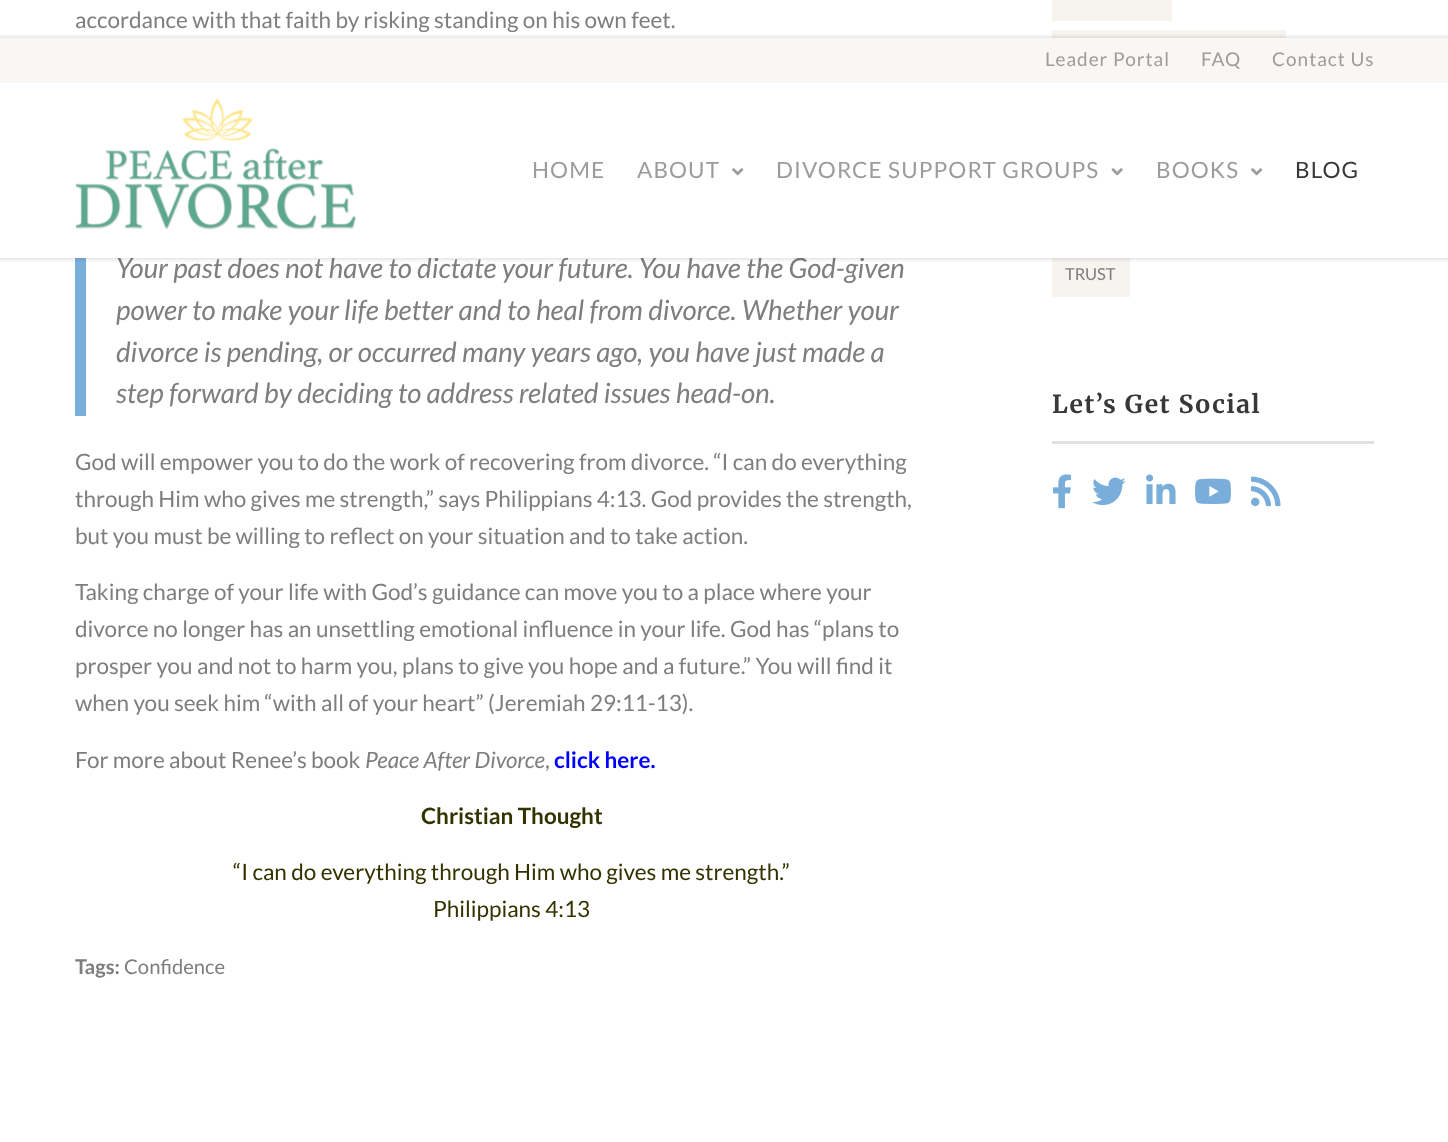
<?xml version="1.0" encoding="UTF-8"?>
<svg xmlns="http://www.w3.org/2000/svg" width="1448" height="1142">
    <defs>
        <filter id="blur1" x="-50%" y="-200%" width="200%" height="500%"><feGaussianBlur stdDeviation="1.5"/></filter>
    </defs>
    <rect width="100%" height="100%" fill="#FFFFFF"/>
    <text x="75" y="28" font-family="Lato" font-size="22.5" fill="#7F7D7D">accordance with that faith by risking standing on his own feet.</text>
    <rect x="75" y="258" width="11" height="158" fill="#79AFDA"/>
    <text font-family="Lato" font-size="27.8" font-style="italic" fill="#7F7D7D">
        <tspan x="116" y="278">Your past does not have to dictate your future. You have the God-given</tspan>
        <tspan x="116" y="320">power to make your life better and to heal from divorce. Whether your</tspan>
        <tspan x="116" y="362">divorce is pending, or occurred many years ago, you have just made a</tspan>
        <tspan x="116" y="403">step forward by deciding to address related issues head-on.</tspan>
    </text>
    <text font-family="Lato" font-size="22.5" fill="#7F7D7D">
        <tspan x="75" y="470">God will empower you to do the work of recovering from divorce. “I can do everything</tspan>
        <tspan x="75" y="507">through Him who gives me strength,” says Philippians 4:13. God provides the strength,</tspan>
        <tspan x="75" y="544">but you must be willing to reflect on your situation and to take action.</tspan>
    </text>
    <text font-family="Lato" font-size="22.5" fill="#7F7D7D">
        <tspan x="75" y="600">Taking charge of your life with God’s guidance can move you to a place where your</tspan>
        <tspan x="75" y="637">divorce no longer has an unsettling emotional influence in your life. God has “plans to</tspan>
        <tspan x="75" y="674">prosper you and not to harm you, plans to give you hope and a future.” You will find it</tspan>
        <tspan x="75" y="711">when you seek him “with all of your heart” (Jeremiah 29:11-13).</tspan>
    </text>
    <text x="75" y="768" font-family="Lato" font-size="22.5" fill="#7F7D7D">For more about Renee’s book</text>
    <text x="365" y="768" font-family="Lato" font-size="22.5" font-style="italic" fill="#7F7D7D">Peace After Divorce</text>
    <text x="545" y="768" font-family="Lato" font-size="22.5" fill="#7F7D7D">,</text>
    <text x="554" y="768" font-family="Lato" font-size="22.5" font-weight="700" fill="#0000FF">click here.</text>
    <text x="421" y="824" font-family="Lato" font-size="22.5" font-weight="700" fill="#333300">Christian Thought</text>
    <text x="233" y="880" font-family="Lato" font-size="22.5" fill="#333300">“I can do everything through Him who gives me strength.”</text>
    <text x="433" y="917" font-family="Lato" font-size="22.5" fill="#333300">Philippians 4:13</text>
    <text x="75" y="974" font-family="Lato" font-size="20.25" font-weight="700" fill="#7F7D7D">Tags:</text>
    <text x="124" y="974" font-family="Lato" font-size="20.25" fill="#7F7D7D">Confidence</text>
    <rect x="1052" y="0" width="120" height="21" fill="#F7F3EF"/>
    <rect x="1052" y="30" width="234" height="8" fill="#F7F3EF"/>
    <rect x="1052" y="258" width="78" height="39" fill="#F7F3EF"/>
    <text x="1065" y="280" font-family="Lato" font-size="16.5" fill="#7F7D7D">TRUST</text>
    <rect x="1052" y="441" width="322" height="3" fill="#E2E1E1"/>
    <text x="1052" y="413" font-family="Merriweather" font-size="24.75" font-weight="700" letter-spacing="1.5" fill="#3A3837">Let’s Get Social</text>
    <image x="1053" y="474" width="19" height="35" href="img_01.png"/>
    <image x="1092" y="477" width="34" height="29" href="img_02.png"/>
    <image x="1146" y="474" width="30" height="30" href="img_03.png"/>
    <image x="1195" y="478" width="36" height="26" href="img_04.png"/>
    <image x="1251" y="476" width="30" height="31" href="img_05.png"/>
    <rect x="-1" y="36" width="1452" height="224" fill="#000000" fill-opacity="0.1" filter="url(#blur1)"/>
    <rect x="0" y="38" width="1448" height="45" fill="#F9F6F3"/>
    <text x="1045" y="66" font-family="Lato" font-size="19" letter-spacing="1" fill="#9D9C9B">Leader Portal</text>
    <text x="1201" y="66" font-family="Lato" font-size="19" letter-spacing="1" fill="#9D9C9B">FAQ</text>
    <text x="1272" y="66" font-family="Lato" font-size="19" letter-spacing="1" fill="#9D9C9B">Contact Us</text>
    <rect x="0" y="83" width="1448" height="175" fill="#FFFFFF"/>
    <image x="75" y="98" width="281" height="132" href="img_06.png"/>
    <text x="532" y="178" font-family="Lato" font-size="22.5" letter-spacing="1.1" fill="#9D9C9B">HOME</text>
    <text x="637" y="178" font-family="Lato" font-size="22.5" letter-spacing="1.1" fill="#9D9C9B">ABOUT</text>
    <image x="732" y="168" width="12" height="8" href="img_07.png"/>
    <text x="776" y="178" font-family="Lato" font-size="22.5" letter-spacing="1.1" fill="#9D9C9B">DIVORCE SUPPORT GROUPS</text>
    <image x="1111" y="168" width="12" height="8" href="img_08.png"/>
    <text x="1156" y="178" font-family="Lato" font-size="22.5" letter-spacing="1.1" fill="#9D9C9B">BOOKS</text>
    <image x="1251" y="168" width="12" height="8" href="img_07.png"/>
    <text x="1295" y="178" font-family="Lato" font-size="22.5" letter-spacing="1.1" fill="#3A3837">BLOG</text>
</svg>
